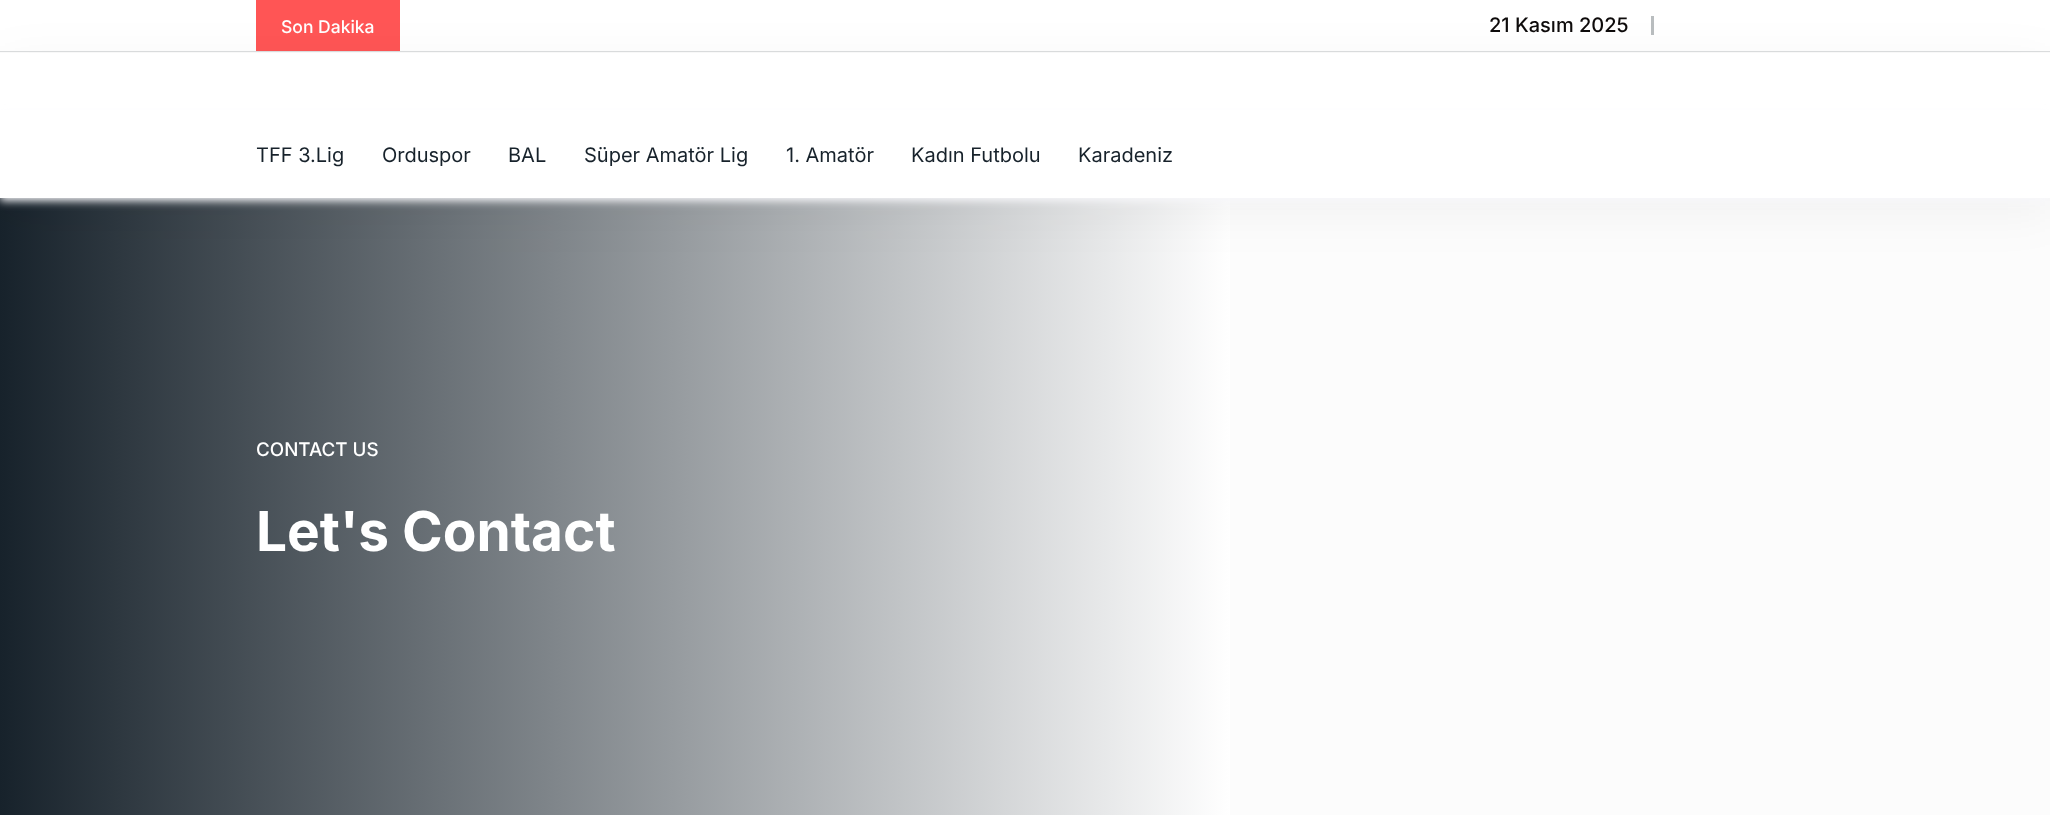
<?xml version="1.0" encoding="UTF-8"?>
<svg xmlns="http://www.w3.org/2000/svg" width="2050" height="815">
    <defs>
        <linearGradient id="g1" gradientUnits="userSpaceOnUse" x1="1230" y1="510" x2="0" y2="510"><stop offset="0" stop-color="#FFFFFF"/><stop offset="1" stop-color="#17222B"/></linearGradient>
        <filter id="blur1" x="-50%" y="-200%" width="200%" height="500%"><feGaussianBlur stdDeviation="25"/></filter>
        <filter id="blur2" x="-50%" y="-200%" width="200%" height="500%"><feGaussianBlur stdDeviation="4.5"/></filter>
    </defs>
    <rect width="100%" height="100%" fill="#FCFCFC"/>
    <rect x="0" y="0" width="2050" height="51" fill="#FFFFFF"/>
    <rect x="256" y="0" width="144" height="51" fill="#FF5555"/>
    <text x="281" y="33" font-family="Inter" font-size="17.5" font-weight="500" fill="#FFFFFF">Son Dakika</text>
    <text x="1489" y="32" font-family="Inter" font-size="20" font-weight="500" fill="#0E0B0B">21 Kasım 2025</text>
    <rect x="1651" y="16" width="3" height="19" fill="#B9BDBF"/>
    <rect x="0" y="51" width="2050" height="1" fill="#DCDEDF"/>
    <rect x="0" y="198" width="1230" height="617" fill="url(#g1)"/>
    <rect x="0" y="65" width="2050" height="145" fill="#17222B" fill-opacity="0.05" filter="url(#blur1)"/>
    <rect x="0" y="53" width="2050" height="57" fill="#FFFFFF"/>
    <rect x="0" y="114" width="2050" height="87" fill="#F8F8FB" filter="url(#blur2)"/>
    <rect x="0" y="110" width="2050" height="88" fill="#FFFFFF"/>
    <text x="256" y="162" font-family="Inter" font-size="20" fill="#17222B">TFF 3.Lig</text>
    <text x="382" y="162" font-family="Inter" font-size="20" fill="#17222B">Orduspor</text>
    <text x="508" y="162" font-family="Inter" font-size="20" fill="#17222B">BAL</text>
    <text x="584" y="162" font-family="Inter" font-size="20" fill="#17222B">Süper Amatör Lig</text>
    <text x="786" y="162" font-family="Inter" font-size="20" fill="#17222B">1. Amatör</text>
    <text x="911" y="162" font-family="Inter" font-size="20" fill="#17222B">Kadın Futbolu</text>
    <text x="1078" y="162" font-family="Inter" font-size="20" fill="#17222B">Karadeniz</text>
    <text x="256" y="456" font-family="Inter" font-size="18.75" font-weight="500" fill="#FFFFFF">CONTACT US</text>
    <text x="256" y="551" font-family="Inter" font-size="55" font-weight="700" fill="#FFFFFF">Let's Contact</text>
</svg>
